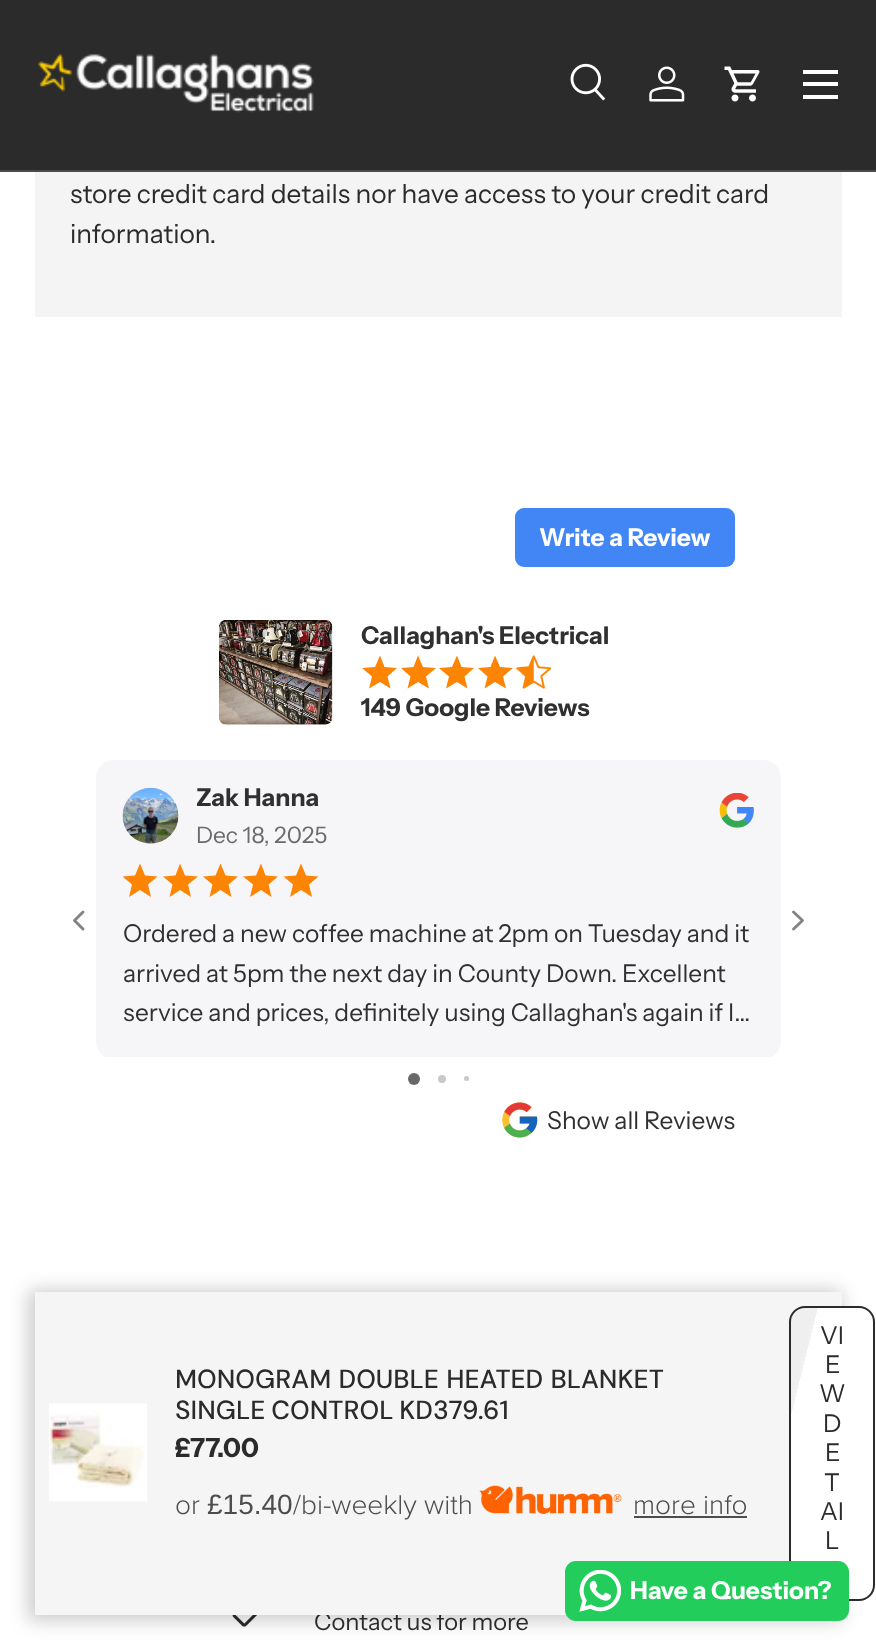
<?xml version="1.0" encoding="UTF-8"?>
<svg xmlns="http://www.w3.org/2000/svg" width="876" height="1650">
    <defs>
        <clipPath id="clip1"><rect x="96" y="760" width="685" height="297"/></clipPath>
        <filter id="blur1" x="-50%" y="-200%" width="200%" height="500%"><feGaussianBlur stdDeviation="9"/></filter>
        <clipPath id="clip2"><rect x="789" y="1306" width="86" height="295" rx="16"/></clipPath>
        <linearGradient id="g1" gradientUnits="userSpaceOnUse" x1="599" y1="1416" x2="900" y2="1491"><stop offset="0.6" stop-color="#2A2B2A" stop-opacity="0.07"/><stop offset="0.6" stop-color="#FFFFFF"/><stop offset="1" stop-color="#FFFFFF"/></linearGradient>
    </defs>
    <rect width="100%" height="100%" fill="#FFFFFF"/>
    <rect x="0" y="0" width="876" height="170" fill="#2A2B2A"/>
    <rect x="0" y="170" width="876" height="2" fill="#4A4B4A"/>
    <image x="38" y="54" width="276" height="59" href="img_01.png"/>
    <image x="570" y="63" width="36" height="38" href="img_02.png"/>
    <image x="649" y="66" width="36" height="36" href="img_03.png"/>
    <image x="724" y="66" width="36" height="36" href="img_04.png"/>
    <rect x="803" y="70" width="35" height="4" fill="#FFFFFF"/>
    <rect x="803" y="95" width="35" height="4" fill="#FFFFFF"/>
    <rect x="803" y="82" width="35" height="4" fill="#FFFFFF"/>
    <rect x="35" y="172" width="807" height="145" fill="#F4F4F4"/>
    <text font-family="Instrument Sans" font-size="26.25" fill="#2A2B2A">
        <tspan x="70" y="203">store credit card details nor have access to your credit card</tspan>
        <tspan x="70" y="243">information.</tspan>
    </text>
    <rect x="515" y="508" width="220" height="59" rx="9" fill="#4285F4"/>
    <text x="539" y="546" font-family="Instrument Sans" font-size="24.5" font-weight="700" fill="#FFFFFF">Write a Review</text>
    <image x="219" y="620" width="114" height="105" href="img_05.png"/>
    <text x="361" y="644" font-family="Instrument Sans" font-size="24.5" font-weight="700" fill="#303030">Callaghan's Electrical</text>
    <path d="M 380 655.5 L 384.5 667 L 397 668 L 387.5 676.5 L 390.5 688.5 L 380 682 L 369 688.5 L 372 676.5 L 362 668 L 375 667 Z" fill="#FE8403" fill-rule="evenodd"/>
    <path d="M 418 655.5 L 423 667 L 436 668 L 426 676.5 L 429 688.5 L 418 682 L 407.5 688.5 L 410.5 676.5 L 401 668 L 413.5 667 Z" fill="#FE8403" fill-rule="evenodd"/>
    <path d="M 457 655.5 L 461.5 667 L 474 668 L 464.5 676.5 L 467.5 688.5 L 457 682 L 446 688.5 L 449 676.5 L 439 668 L 452 667 Z" fill="#FE8403" fill-rule="evenodd"/>
    <path d="M 495 655.5 L 500 667 L 513 668 L 503 676.5 L 506 688.5 L 495 682 L 484.5 688.5 L 487.5 676.5 L 478 668 L 490.5 667 Z" fill="#FE8403" fill-rule="evenodd"/>
    <image x="516" y="655" width="35" height="34" href="img_06.png"/>
    <text x="361" y="716" font-family="Instrument Sans" font-size="24.5" font-weight="700" fill="#303030">149 Google Reviews</text>
    <path d="M 83 929 L 74.5 920.5 L 83 912" fill="none" stroke="#838383" stroke-width="2.9" stroke-linecap="round" stroke-linejoin="round"/>
    <g clip-path="url(#clip1)">
        <rect x="96" y="760" width="685" height="299" rx="18" fill="#F6F6F8"/>
    </g>
    <image x="122" y="787" width="57" height="57" href="img_07.png"/>
    <text x="196" y="806" font-family="Instrument Sans" font-size="24.5" font-weight="700" fill="#303030">Zak Hanna</text>
    <text x="196" y="843" font-family="Instrument Sans" font-size="22.75" fill="#6B6B6C">Dec 18, 2025</text>
    <image x="719" y="793" width="35" height="35" href="img_08.png"/>
    <path d="M 140 863.5 L 145 875.5 L 157.5 876.5 L 148 884.5 L 151 897 L 140 890 L 129 897 L 132 884.5 L 122.5 876.5 L 135 875.5 Z" fill="#FE8403" fill-rule="evenodd"/>
    <path d="M 180 863.5 L 185 875.5 L 198 876.5 L 188 884.5 L 191 897 L 180 890 L 169.5 897 L 172.5 884.5 L 163 876.5 L 175.5 875.5 Z" fill="#FE8403" fill-rule="evenodd"/>
    <path d="M 220.5 863.5 L 225.5 875.5 L 238 876.5 L 228.5 884.5 L 231.5 897 L 220.5 890 L 209.5 897 L 212.5 884.5 L 203 876.5 L 215.5 875.5 Z" fill="#FE8403" fill-rule="evenodd"/>
    <path d="M 261 863.5 L 265.5 875.5 L 278 876.5 L 268.5 884.5 L 271.5 897 L 261 890 L 250 897 L 253 884.5 L 243 876.5 L 256 875.5 Z" fill="#FE8403" fill-rule="evenodd"/>
    <path d="M 301 863.5 L 306 875.5 L 318.5 876.5 L 309 884.5 L 312 897 L 301 890 L 290 897 L 293 884.5 L 283.5 876.5 L 296 875.5 Z" fill="#FE8403" fill-rule="evenodd"/>
    <text font-family="Instrument Sans" font-size="24.5" fill="#303030">
        <tspan x="123" y="942">Ordered a new coffee machine at 2pm on Tuesday and it</tspan>
        <tspan x="123" y="982">arrived at 5pm the next day in County Down. Excellent</tspan>
        <tspan x="123" y="1021">service and prices, definitely using Callaghan's again if I…</tspan>
    </text>
    <path d="M 793.5 929 L 802.5 920.5 L 793.5 912" fill="none" stroke="#838383" stroke-width="2.9" stroke-linecap="round" stroke-linejoin="round"/>
    <circle cx="414" cy="1079" r="6" fill="#696969"/>
    <circle cx="442" cy="1079" r="4" fill="#C9C9C9"/>
    <circle cx="466.5" cy="1078.5" r="2.5" fill="#C9C9C9"/>
    <image x="502" y="1102" width="36" height="36" href="img_09.png"/>
    <text x="547" y="1129" font-family="Instrument Sans" font-size="24.5" fill="#303030">Show all Reviews</text>
    <image x="232" y="1615" width="25" height="12" href="img_13.png"/>
    <rect x="28" y="1290" width="814" height="331" fill="#000000" fill-opacity="0.2" filter="url(#blur1)"/>
    <text x="314" y="1630" font-family="Instrument Sans" font-size="23.6" fill="#2A2B2A">Contact us for more</text>
    <rect x="35" y="1292" width="807" height="323" fill="#F5F5F5"/>
    <image x="49" y="1403" width="98" height="99" href="img_10.png"/>
    <text font-family="DM Sans" font-size="26.25" font-weight="500" fill="#2A2B2A">
        <tspan x="175" y="1388" word-spacing="0.5">MONOGRAM DOUBLE HEATED BLANKET</tspan>
        <tspan x="175" y="1419" word-spacing="-1">SINGLE CONTROL KD379.61</tspan>
    </text>
    <text x="175" y="1457" font-family="Instrument Sans" font-size="26.25" font-weight="700" fill="#2A2B2A">£77.00</text>
    <text x="175" y="1514" font-family="Proxima Nova" font-size="28" font-weight="300" fill="#4D4D4D">or</text>
    <text x="207" y="1514" font-family="Liberation Sans" font-size="28" fill="#4D4D4D">£15.40</text>
    <text x="293" y="1514" font-family="Proxima Nova" font-size="28" font-weight="300" fill="#4D4D4D">/bi-weekly with</text>
    <image x="479" y="1485" width="143" height="29" href="img_11.png"/>
    <text x="633" y="1514" font-family="Proxima Nova" font-size="28" font-weight="300" fill="#4D4D4D">more info</text>
    <rect x="634" y="1516" width="113" height="2" fill="#4D4D4D"/>
    <rect x="789" y="1306" width="86" height="295" rx="16" fill="#FFFFFF" fill-opacity="0.9"/>
    <g clip-path="url(#clip2)">
        <rect x="789" y="1307" width="84" height="293" fill="url(#g1)"/>
    </g>
    <rect x="790" y="1307" width="84" height="293" rx="15" fill="none" stroke="#2A2B2A" stroke-width="2"/>
    <text x="820" y="1344" font-family="Instrument Sans" font-size="24.5" fill="#2A2B2A">VI</text>
    <text x="825" y="1373" font-family="Instrument Sans" font-size="24.5" fill="#2A2B2A">E</text>
    <text x="819" y="1402" font-family="Instrument Sans" font-size="24.5" fill="#2A2B2A">W</text>
    <text x="823" y="1432" font-family="Instrument Sans" font-size="24.5" fill="#2A2B2A">D</text>
    <text x="825" y="1461" font-family="Instrument Sans" font-size="24.5" fill="#2A2B2A">E</text>
    <text x="824" y="1491" font-family="Instrument Sans" font-size="24.5" fill="#2A2B2A">T</text>
    <text x="820" y="1520" font-family="Instrument Sans" font-size="24.5" fill="#2A2B2A">AI</text>
    <text x="825" y="1549" font-family="Instrument Sans" font-size="24.5" fill="#2A2B2A">L</text>
    <rect x="565" y="1561" width="284" height="60" rx="11" fill="#22CD5B"/>
    <image x="579" y="1570" width="42" height="42" href="img_12.png"/>
    <text x="630" y="1599" font-family="Instrument Sans" font-size="24.5" font-weight="700" fill="#FFFFFF">Have a Question?</text>
</svg>
